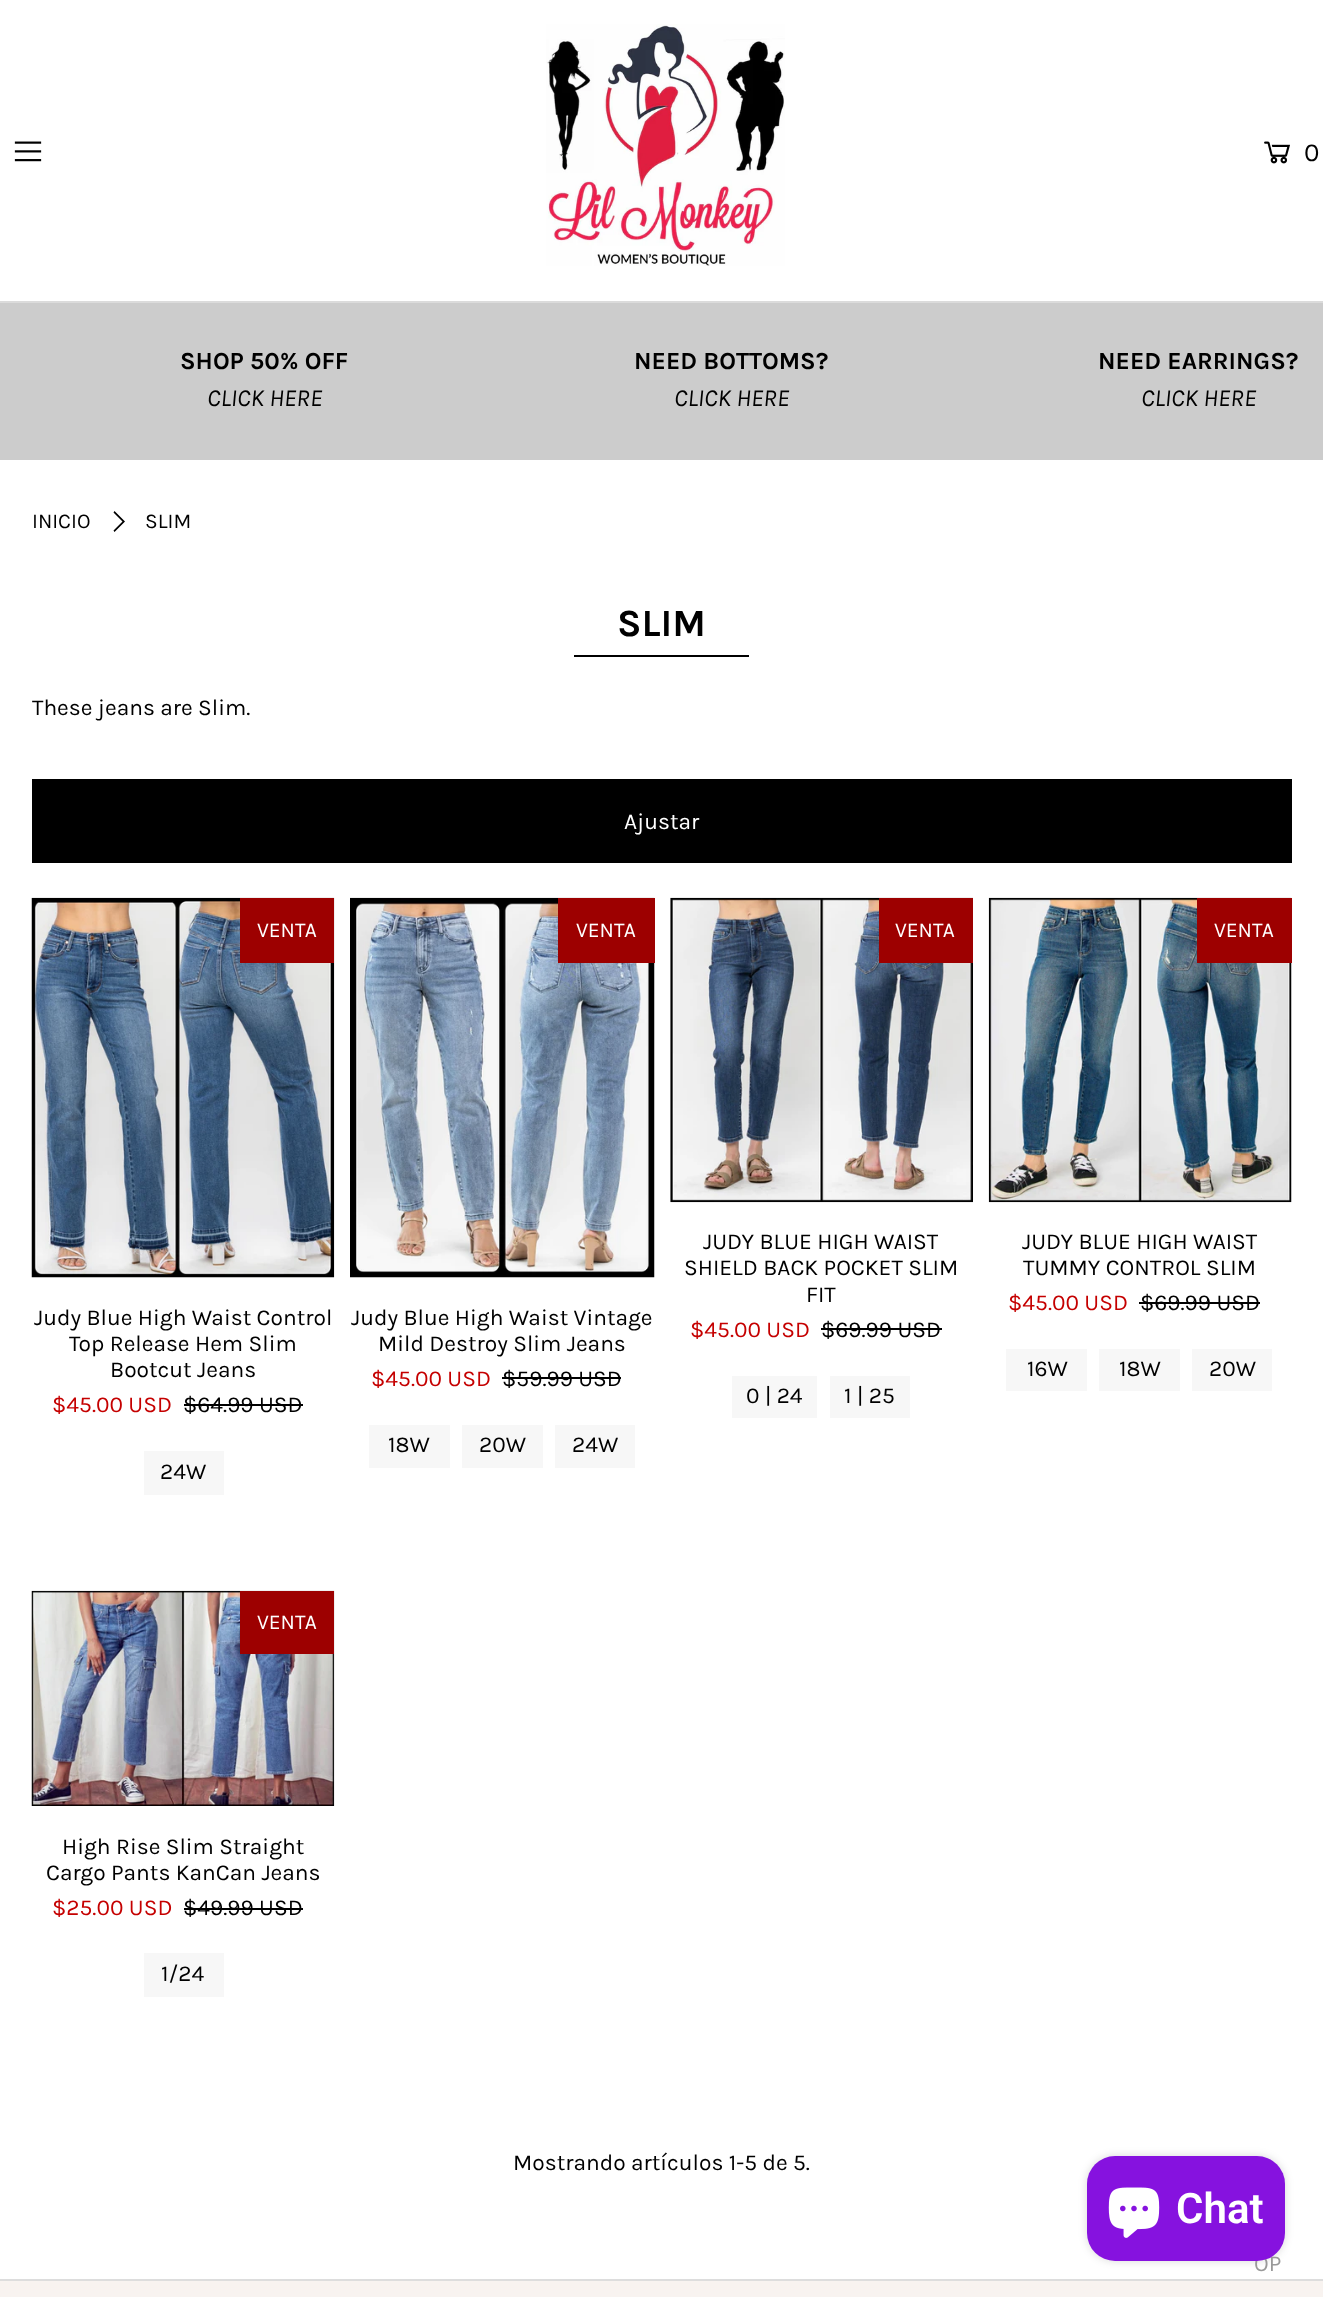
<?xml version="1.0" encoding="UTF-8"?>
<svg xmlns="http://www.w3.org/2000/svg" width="1323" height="2297">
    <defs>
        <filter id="blur1" x="-50%" y="-200%" width="200%" height="500%"><feGaussianBlur stdDeviation="4.5"/></filter>
    </defs>
    <rect width="100%" height="100%" fill="#FFFFFF"/>
    <rect x="0" y="301" width="1323" height="2" fill="#DBDBDB"/>
    <image x="14" y="141" width="28" height="21" href="img_01.png"/>
    <image x="546" y="24" width="239" height="242" href="img_02.png"/>
    <image x="1264" y="141" width="26" height="23" href="img_03.png"/>
    <text x="1304" y="161" font-family="Karla" font-size="26" fill="#000000">0</text>
    <rect x="0" y="303" width="1323" height="157" fill="#CCCCCC"/>
    <text x="180" y="369" font-family="Karla" font-size="24.5" font-weight="700" fill="#000000">SHOP 50% OFF</text>
    <text x="207" y="406" font-family="Karla" font-size="24.5" font-style="italic" fill="#000000">CLICK HERE</text>
    <text x="634" y="369" font-family="Karla" font-size="24.5" font-weight="700" fill="#000000">NEED BOTTOMS?</text>
    <text x="674" y="406" font-family="Karla" font-size="24.5" font-style="italic" fill="#000000">CLICK HERE</text>
    <text x="1098" y="369" font-family="Karla" font-size="24.5" font-weight="700" fill="#000000">NEED EARRINGS?</text>
    <text x="1141" y="406" font-family="Karla" font-size="24.5" font-style="italic" fill="#000000">CLICK HERE</text>
    <text x="32" y="528" font-family="Karla" font-size="21" fill="#000000">INICIO</text>
    <path d="M 114.5 511 L 125 521.5 L 114.5 532 L 113.5 530.5 L 122.5 521.5 L 113.5 512.5 Z" fill="#000000"/>
    <text x="145" y="528" font-family="Karla" font-size="21" fill="#000000">SLIM</text>
    <text x="617" y="636" font-family="Karla" font-size="38.5" font-weight="700" fill="#000000">SLIM</text>
    <rect x="574" y="655" width="175" height="2" fill="#000000"/>
    <text x="32" y="715" font-family="Karla" font-size="22.75" fill="#000000">These jeans are Slim.</text>
    <rect x="32" y="779" width="1260" height="84" fill="#000000"/>
    <text x="624" y="829" font-family="Karla" font-size="22.75" fill="#FFFFFF">Ajustar</text>
    <image x="31" y="897" width="304" height="381" href="img_04.png"/>
    <rect x="240" y="898" width="94" height="65" fill="#9D0000"/>
    <text x="257" y="937" font-family="Karla" font-size="21" fill="#FFFFFF">VENTA</text>
    <text x="34" y="1325" font-family="Karla" font-size="22.75" fill="#000000">Judy Blue High Waist Control</text>
    <text x="69" y="1351" font-family="Karla" font-size="22.75" fill="#000000">Top Release Hem Slim</text>
    <text x="110" y="1377" font-family="Karla" font-size="22.75" fill="#000000">Bootcut Jeans</text>
    <text x="52" y="1412" font-family="Karla" font-size="22.75" fill="#C50000">$45.00 USD</text>
    <text x="183" y="1412" font-family="Karla" font-size="22.75" fill="#000000">$64.99 USD</text>
    <rect x="184" y="1404" width="119" height="2" fill="#000000"/>
    <rect x="144" y="1451" width="80" height="44" fill="#F7F7F7"/>
    <text x="160" y="1479" font-family="Karla" font-size="22.75" fill="#000000">24W</text>
    <image x="350" y="897" width="305" height="381" href="img_05.png"/>
    <rect x="558" y="898" width="97" height="65" fill="#9D0000"/>
    <text x="576" y="937" font-family="Karla" font-size="21" fill="#FFFFFF">VENTA</text>
    <text x="351" y="1325" font-family="Karla" font-size="22.75" fill="#000000">Judy Blue High Waist Vintage</text>
    <text x="378" y="1351" font-family="Karla" font-size="22.75" fill="#000000">Mild Destroy Slim Jeans</text>
    <text x="371" y="1386" font-family="Karla" font-size="22.75" fill="#C50000">$45.00 USD</text>
    <text x="502" y="1386" font-family="Karla" font-size="22.75" fill="#000000">$59.99 USD</text>
    <rect x="502" y="1377" width="119" height="2" fill="#000000"/>
    <rect x="369" y="1425" width="81" height="43" fill="#F7F7F7"/>
    <text x="388" y="1452" font-family="Karla" font-size="22.75" fill="#000000">18W</text>
    <rect x="462" y="1425" width="81" height="43" fill="#F7F7F7"/>
    <text x="479" y="1452" font-family="Karla" font-size="22.75" fill="#000000">20W</text>
    <rect x="555" y="1425" width="80" height="43" fill="#F7F7F7"/>
    <text x="572" y="1452" font-family="Karla" font-size="22.75" fill="#000000">24W</text>
    <image x="670" y="897" width="303" height="306" href="img_06.png"/>
    <rect x="879" y="898" width="94" height="65" fill="#9D0000"/>
    <text x="895" y="937" font-family="Karla" font-size="21" fill="#FFFFFF">VENTA</text>
    <text x="703" y="1249" font-family="Karla" font-size="22.75" fill="#000000">JUDY BLUE HIGH WAIST</text>
    <text x="684" y="1275" font-family="Karla" font-size="22.75" fill="#000000">SHIELD BACK POCKET SLIM</text>
    <text x="806" y="1302" font-family="Karla" font-size="22.75" fill="#000000">FIT</text>
    <text x="690" y="1337" font-family="Karla" font-size="22.75" fill="#C50000">$45.00 USD</text>
    <text x="821" y="1337" font-family="Karla" font-size="22.75" fill="#000000">$69.99 USD</text>
    <rect x="821" y="1328" width="121" height="2" fill="#000000"/>
    <rect x="732" y="1376" width="85" height="42" fill="#F7F7F7"/>
    <text x="746" y="1403" font-family="Karla" font-size="22.75" fill="#000000">0 | 24</text>
    <rect x="830" y="1376" width="80" height="42" fill="#F7F7F7"/>
    <text x="844" y="1403" font-family="Karla" font-size="22.75" fill="#000000">1 | 25</text>
    <image x="988" y="897" width="304" height="306" href="img_07.png"/>
    <rect x="1197" y="898" width="95" height="65" fill="#9D0000"/>
    <text x="1214" y="937" font-family="Karla" font-size="21" fill="#FFFFFF">VENTA</text>
    <text x="1022" y="1249" font-family="Karla" font-size="22.75" fill="#000000">JUDY BLUE HIGH WAIST</text>
    <text x="1023" y="1275" font-family="Karla" font-size="22.75" fill="#000000">TUMMY CONTROL SLIM</text>
    <text x="1008" y="1310" font-family="Karla" font-size="22.75" fill="#C50000">$45.00 USD</text>
    <text x="1140" y="1310" font-family="Karla" font-size="22.75" fill="#000000">$69.99 USD</text>
    <rect x="1139" y="1302" width="121" height="2" fill="#000000"/>
    <rect x="1006" y="1349" width="81" height="42" fill="#F7F7F7"/>
    <text x="1027" y="1376" font-family="Karla" font-size="22.75" fill="#000000">16W</text>
    <rect x="1099" y="1349" width="81" height="42" fill="#F7F7F7"/>
    <text x="1119" y="1376" font-family="Karla" font-size="22.75" fill="#000000">18W</text>
    <rect x="1192" y="1349" width="80" height="42" fill="#F7F7F7"/>
    <text x="1209" y="1376" font-family="Karla" font-size="22.75" fill="#000000">20W</text>
    <image x="31" y="1590" width="304" height="216" href="img_08.png"/>
    <rect x="240" y="1591" width="94" height="63" fill="#9D0000"/>
    <text x="257" y="1629" font-family="Karla" font-size="21" fill="#FFFFFF">VENTA</text>
    <text x="62" y="1854" font-family="Karla" font-size="22.75" fill="#000000">High Rise Slim Straight</text>
    <text x="46" y="1880" font-family="Karla" font-size="22.75" fill="#000000">Cargo Pants KanCan Jeans</text>
    <text x="52" y="1915" font-family="Karla" font-size="22.75" fill="#C50000">$25.00 USD</text>
    <text x="183" y="1915" font-family="Karla" font-size="22.75" fill="#000000">$49.99 USD</text>
    <rect x="184" y="1908" width="119" height="2" fill="#000000"/>
    <rect x="144" y="1953" width="80" height="44" fill="#F7F7F7"/>
    <text x="161" y="1981" font-family="Karla" font-size="22.75" fill="#000000">1/24</text>
    <text x="513" y="2170" font-family="Karla" font-size="22.75" fill="#000000">Mostrando artículos 1-5 de 5.</text>
    <rect x="0" y="2281" width="1323" height="16" fill="#F8F3F0"/>
    <rect x="0" y="2279" width="1323" height="2" fill="#DDDDDD"/>
    <rect x="1087" y="2156" width="198" height="105" rx="28" fill="#000000" fill-opacity="0.15" filter="url(#blur1)"/>
    <text x="1254" y="2271" font-family="Karla" font-size="22.75" fill="#999999">OP</text>
    <rect x="1087" y="2156" width="198" height="105" rx="28" fill="#8612DF"/>
    <image x="1108" y="2187" width="52" height="51" href="img_09.png"/>
    <text x="1176" y="2223" font-family="Roboto" font-size="42" font-weight="600" fill="#FFFFFF">Chat</text>
</svg>
